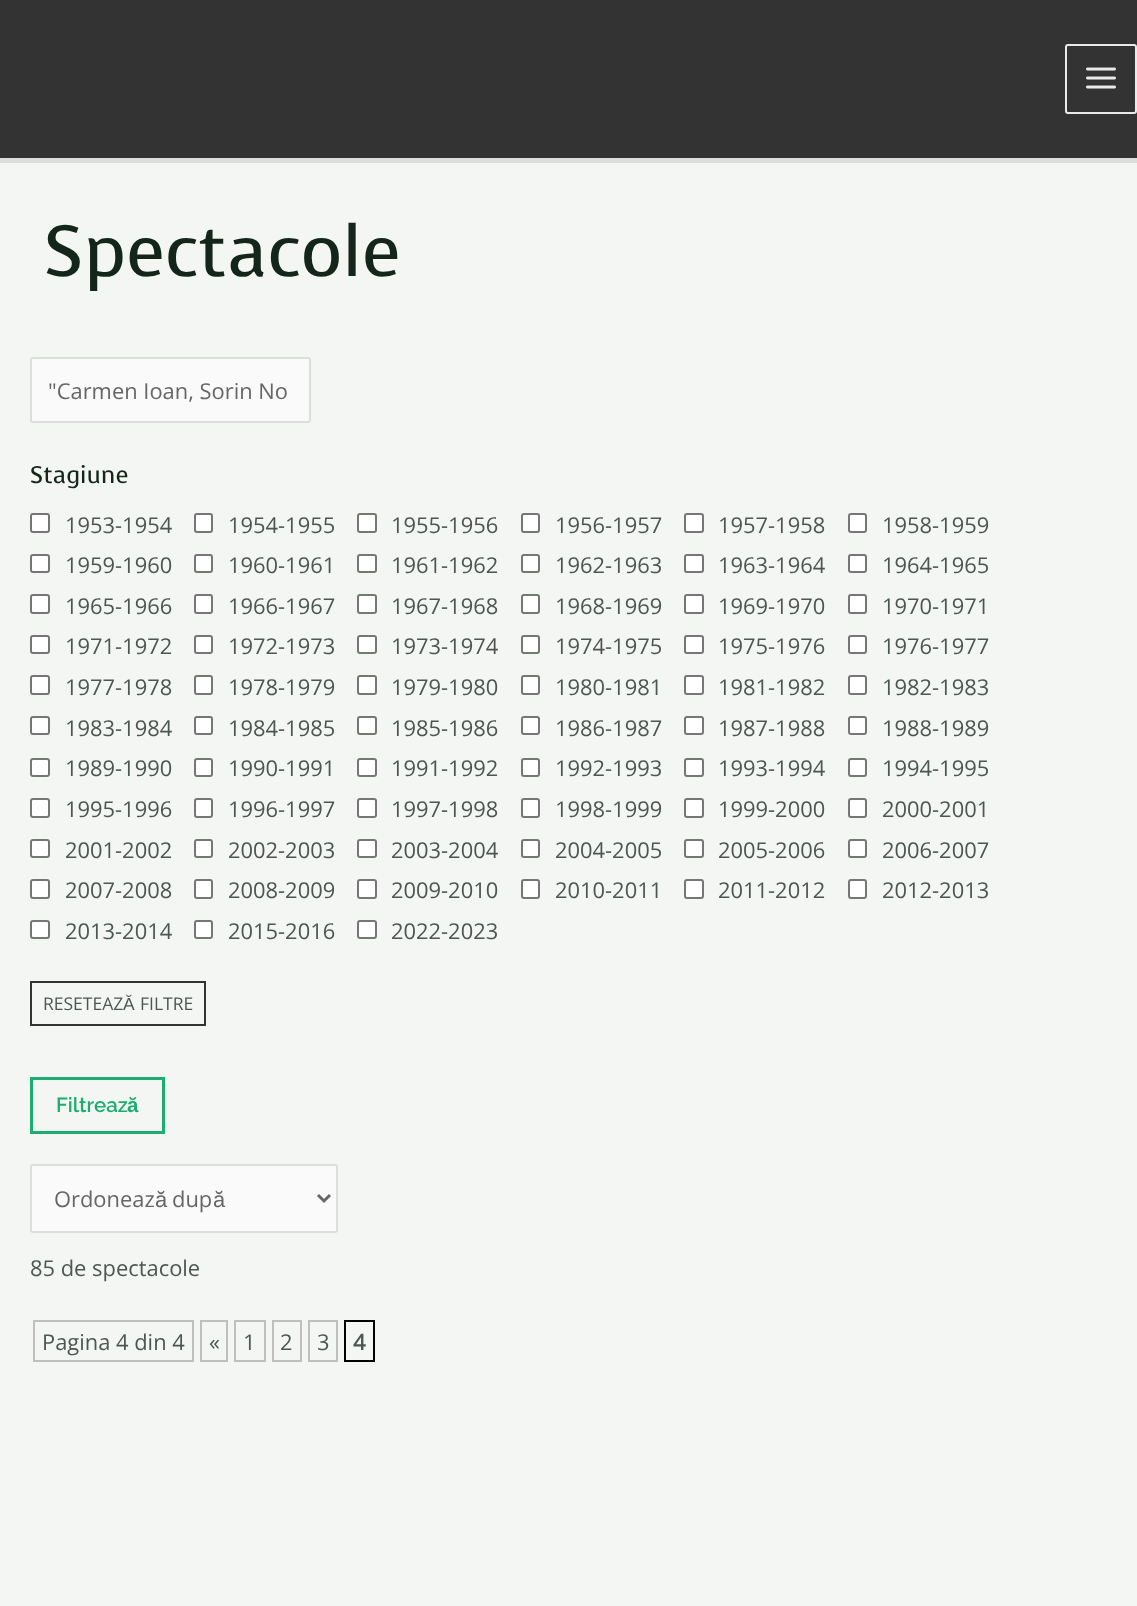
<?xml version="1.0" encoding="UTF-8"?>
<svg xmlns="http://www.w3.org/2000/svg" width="1137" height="1606">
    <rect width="100%" height="100%" fill="#F4F6F4"/>
    <rect x="0" y="0" width="1137" height="158" fill="#333333"/>
    <rect x="0" y="158" width="1137" height="5" fill="#DDDDDD"/>
    <rect x="1066" y="45" width="70" height="68" rx="2" fill="none" stroke="#EAEAEA" stroke-width="2"/>
    <image x="1086" y="67" width="30" height="22" href="img_01.png"/>
    <text x="44" y="276" font-family="Voces" font-size="72" fill="#14261C">Spectacole</text>
    <rect x="31" y="358" width="279" height="64" rx="2" fill="#FAFAFA" stroke="#DDDDDD" stroke-width="2"/>
    <text x="48" y="399" font-family="Open Sans" font-size="21.9" fill="#666666">"Carmen Ioan, Sorin No</text>
    <text x="30" y="483" font-family="Voces" font-size="24" fill="#14261C">Stagiune</text>
    <rect x="31" y="514" width="18" height="18" rx="2" fill="#FFFFFF" stroke="#767676" stroke-width="2"/>
    <text x="65" y="533" font-family="Open Sans" font-size="21.9" fill="#4E5652">1953-1954</text>
    <rect x="195" y="514" width="17" height="18" rx="2" fill="#FFFFFF" stroke="#767676" stroke-width="2"/>
    <text x="228" y="533" font-family="Open Sans" font-size="21.9" fill="#4E5652">1954-1955</text>
    <rect x="358" y="514" width="18" height="18" rx="2" fill="#FFFFFF" stroke="#767676" stroke-width="2"/>
    <text x="391" y="533" font-family="Open Sans" font-size="21.9" fill="#4E5652">1955-1956</text>
    <rect x="522" y="514" width="17" height="18" rx="2" fill="#FFFFFF" stroke="#767676" stroke-width="2"/>
    <text x="555" y="533" font-family="Open Sans" font-size="21.9" fill="#4E5652">1956-1957</text>
    <rect x="685" y="514" width="18" height="18" rx="2" fill="#FFFFFF" stroke="#767676" stroke-width="2"/>
    <text x="718" y="533" font-family="Open Sans" font-size="21.9" fill="#4E5652">1957-1958</text>
    <rect x="849" y="514" width="17" height="18" rx="2" fill="#FFFFFF" stroke="#767676" stroke-width="2"/>
    <text x="882" y="533" font-family="Open Sans" font-size="21.9" fill="#4E5652">1958-1959</text>
    <rect x="31" y="555" width="18" height="17" rx="2" fill="#FFFFFF" stroke="#767676" stroke-width="2"/>
    <text x="65" y="573" font-family="Open Sans" font-size="21.9" fill="#4E5652">1959-1960</text>
    <rect x="195" y="555" width="17" height="17" rx="2" fill="#FFFFFF" stroke="#767676" stroke-width="2"/>
    <text x="228" y="573" font-family="Open Sans" font-size="21.9" fill="#4E5652">1960-1961</text>
    <rect x="358" y="555" width="18" height="17" rx="2" fill="#FFFFFF" stroke="#767676" stroke-width="2"/>
    <text x="391" y="573" font-family="Open Sans" font-size="21.9" fill="#4E5652">1961-1962</text>
    <rect x="522" y="555" width="17" height="17" rx="2" fill="#FFFFFF" stroke="#767676" stroke-width="2"/>
    <text x="555" y="573" font-family="Open Sans" font-size="21.9" fill="#4E5652">1962-1963</text>
    <rect x="685" y="555" width="18" height="17" rx="2" fill="#FFFFFF" stroke="#767676" stroke-width="2"/>
    <text x="718" y="573" font-family="Open Sans" font-size="21.9" fill="#4E5652">1963-1964</text>
    <rect x="849" y="555" width="17" height="17" rx="2" fill="#FFFFFF" stroke="#767676" stroke-width="2"/>
    <text x="882" y="573" font-family="Open Sans" font-size="21.9" fill="#4E5652">1964-1965</text>
    <rect x="31" y="595" width="18" height="18" rx="2" fill="#FFFFFF" stroke="#767676" stroke-width="2"/>
    <text x="65" y="614" font-family="Open Sans" font-size="21.9" fill="#4E5652">1965-1966</text>
    <rect x="195" y="595" width="17" height="18" rx="2" fill="#FFFFFF" stroke="#767676" stroke-width="2"/>
    <text x="228" y="614" font-family="Open Sans" font-size="21.9" fill="#4E5652">1966-1967</text>
    <rect x="358" y="595" width="18" height="18" rx="2" fill="#FFFFFF" stroke="#767676" stroke-width="2"/>
    <text x="391" y="614" font-family="Open Sans" font-size="21.9" fill="#4E5652">1967-1968</text>
    <rect x="522" y="595" width="17" height="18" rx="2" fill="#FFFFFF" stroke="#767676" stroke-width="2"/>
    <text x="555" y="614" font-family="Open Sans" font-size="21.9" fill="#4E5652">1968-1969</text>
    <rect x="685" y="595" width="18" height="18" rx="2" fill="#FFFFFF" stroke="#767676" stroke-width="2"/>
    <text x="718" y="614" font-family="Open Sans" font-size="21.9" fill="#4E5652">1969-1970</text>
    <rect x="849" y="595" width="17" height="18" rx="2" fill="#FFFFFF" stroke="#767676" stroke-width="2"/>
    <text x="882" y="614" font-family="Open Sans" font-size="21.9" fill="#4E5652">1970-1971</text>
    <rect x="31" y="636" width="18" height="17" rx="2" fill="#FFFFFF" stroke="#767676" stroke-width="2"/>
    <text x="65" y="654" font-family="Open Sans" font-size="21.9" fill="#4E5652">1971-1972</text>
    <rect x="195" y="636" width="17" height="17" rx="2" fill="#FFFFFF" stroke="#767676" stroke-width="2"/>
    <text x="228" y="654" font-family="Open Sans" font-size="21.9" fill="#4E5652">1972-1973</text>
    <rect x="358" y="636" width="18" height="17" rx="2" fill="#FFFFFF" stroke="#767676" stroke-width="2"/>
    <text x="391" y="654" font-family="Open Sans" font-size="21.9" fill="#4E5652">1973-1974</text>
    <rect x="522" y="636" width="17" height="17" rx="2" fill="#FFFFFF" stroke="#767676" stroke-width="2"/>
    <text x="555" y="654" font-family="Open Sans" font-size="21.9" fill="#4E5652">1974-1975</text>
    <rect x="685" y="636" width="18" height="17" rx="2" fill="#FFFFFF" stroke="#767676" stroke-width="2"/>
    <text x="718" y="654" font-family="Open Sans" font-size="21.9" fill="#4E5652">1975-1976</text>
    <rect x="849" y="636" width="17" height="17" rx="2" fill="#FFFFFF" stroke="#767676" stroke-width="2"/>
    <text x="882" y="654" font-family="Open Sans" font-size="21.9" fill="#4E5652">1976-1977</text>
    <rect x="31" y="676" width="18" height="18" rx="2" fill="#FFFFFF" stroke="#767676" stroke-width="2"/>
    <text x="65" y="695" font-family="Open Sans" font-size="21.9" fill="#4E5652">1977-1978</text>
    <rect x="195" y="676" width="17" height="18" rx="2" fill="#FFFFFF" stroke="#767676" stroke-width="2"/>
    <text x="228" y="695" font-family="Open Sans" font-size="21.9" fill="#4E5652">1978-1979</text>
    <rect x="358" y="676" width="18" height="18" rx="2" fill="#FFFFFF" stroke="#767676" stroke-width="2"/>
    <text x="391" y="695" font-family="Open Sans" font-size="21.9" fill="#4E5652">1979-1980</text>
    <rect x="522" y="676" width="17" height="18" rx="2" fill="#FFFFFF" stroke="#767676" stroke-width="2"/>
    <text x="555" y="695" font-family="Open Sans" font-size="21.9" fill="#4E5652">1980-1981</text>
    <rect x="685" y="676" width="18" height="18" rx="2" fill="#FFFFFF" stroke="#767676" stroke-width="2"/>
    <text x="718" y="695" font-family="Open Sans" font-size="21.9" fill="#4E5652">1981-1982</text>
    <rect x="849" y="676" width="17" height="18" rx="2" fill="#FFFFFF" stroke="#767676" stroke-width="2"/>
    <text x="882" y="695" font-family="Open Sans" font-size="21.9" fill="#4E5652">1982-1983</text>
    <rect x="31" y="717" width="18" height="17" rx="2" fill="#FFFFFF" stroke="#767676" stroke-width="2"/>
    <text x="65" y="736" font-family="Open Sans" font-size="21.9" fill="#4E5652">1983-1984</text>
    <rect x="195" y="717" width="17" height="17" rx="2" fill="#FFFFFF" stroke="#767676" stroke-width="2"/>
    <text x="228" y="736" font-family="Open Sans" font-size="21.9" fill="#4E5652">1984-1985</text>
    <rect x="358" y="717" width="18" height="17" rx="2" fill="#FFFFFF" stroke="#767676" stroke-width="2"/>
    <text x="391" y="736" font-family="Open Sans" font-size="21.9" fill="#4E5652">1985-1986</text>
    <rect x="522" y="717" width="17" height="17" rx="2" fill="#FFFFFF" stroke="#767676" stroke-width="2"/>
    <text x="555" y="736" font-family="Open Sans" font-size="21.9" fill="#4E5652">1986-1987</text>
    <rect x="685" y="717" width="18" height="17" rx="2" fill="#FFFFFF" stroke="#767676" stroke-width="2"/>
    <text x="718" y="736" font-family="Open Sans" font-size="21.9" fill="#4E5652">1987-1988</text>
    <rect x="849" y="717" width="17" height="17" rx="2" fill="#FFFFFF" stroke="#767676" stroke-width="2"/>
    <text x="882" y="736" font-family="Open Sans" font-size="21.9" fill="#4E5652">1988-1989</text>
    <rect x="31" y="759" width="18" height="17" rx="2" fill="#FFFFFF" stroke="#767676" stroke-width="2"/>
    <text x="65" y="776" font-family="Open Sans" font-size="21.9" fill="#4E5652">1989-1990</text>
    <rect x="195" y="759" width="17" height="17" rx="2" fill="#FFFFFF" stroke="#767676" stroke-width="2"/>
    <text x="228" y="776" font-family="Open Sans" font-size="21.9" fill="#4E5652">1990-1991</text>
    <rect x="358" y="759" width="18" height="17" rx="2" fill="#FFFFFF" stroke="#767676" stroke-width="2"/>
    <text x="391" y="776" font-family="Open Sans" font-size="21.9" fill="#4E5652">1991-1992</text>
    <rect x="522" y="759" width="17" height="17" rx="2" fill="#FFFFFF" stroke="#767676" stroke-width="2"/>
    <text x="555" y="776" font-family="Open Sans" font-size="21.9" fill="#4E5652">1992-1993</text>
    <rect x="685" y="759" width="18" height="17" rx="2" fill="#FFFFFF" stroke="#767676" stroke-width="2"/>
    <text x="718" y="776" font-family="Open Sans" font-size="21.9" fill="#4E5652">1993-1994</text>
    <rect x="849" y="759" width="17" height="17" rx="2" fill="#FFFFFF" stroke="#767676" stroke-width="2"/>
    <text x="882" y="776" font-family="Open Sans" font-size="21.9" fill="#4E5652">1994-1995</text>
    <rect x="31" y="799" width="18" height="18" rx="2" fill="#FFFFFF" stroke="#767676" stroke-width="2"/>
    <text x="65" y="817" font-family="Open Sans" font-size="21.9" fill="#4E5652">1995-1996</text>
    <rect x="195" y="799" width="17" height="18" rx="2" fill="#FFFFFF" stroke="#767676" stroke-width="2"/>
    <text x="228" y="817" font-family="Open Sans" font-size="21.9" fill="#4E5652">1996-1997</text>
    <rect x="358" y="799" width="18" height="18" rx="2" fill="#FFFFFF" stroke="#767676" stroke-width="2"/>
    <text x="391" y="817" font-family="Open Sans" font-size="21.9" fill="#4E5652">1997-1998</text>
    <rect x="522" y="799" width="17" height="18" rx="2" fill="#FFFFFF" stroke="#767676" stroke-width="2"/>
    <text x="555" y="817" font-family="Open Sans" font-size="21.9" fill="#4E5652">1998-1999</text>
    <rect x="685" y="799" width="18" height="18" rx="2" fill="#FFFFFF" stroke="#767676" stroke-width="2"/>
    <text x="718" y="817" font-family="Open Sans" font-size="21.9" fill="#4E5652">1999-2000</text>
    <rect x="849" y="799" width="17" height="18" rx="2" fill="#FFFFFF" stroke="#767676" stroke-width="2"/>
    <text x="882" y="817" font-family="Open Sans" font-size="21.9" fill="#4E5652">2000-2001</text>
    <rect x="31" y="840" width="18" height="17" rx="2" fill="#FFFFFF" stroke="#767676" stroke-width="2"/>
    <text x="65" y="858" font-family="Open Sans" font-size="21.9" fill="#4E5652">2001-2002</text>
    <rect x="195" y="840" width="17" height="17" rx="2" fill="#FFFFFF" stroke="#767676" stroke-width="2"/>
    <text x="228" y="858" font-family="Open Sans" font-size="21.9" fill="#4E5652">2002-2003</text>
    <rect x="358" y="840" width="18" height="17" rx="2" fill="#FFFFFF" stroke="#767676" stroke-width="2"/>
    <text x="391" y="858" font-family="Open Sans" font-size="21.9" fill="#4E5652">2003-2004</text>
    <rect x="522" y="840" width="17" height="17" rx="2" fill="#FFFFFF" stroke="#767676" stroke-width="2"/>
    <text x="555" y="858" font-family="Open Sans" font-size="21.9" fill="#4E5652">2004-2005</text>
    <rect x="685" y="840" width="18" height="17" rx="2" fill="#FFFFFF" stroke="#767676" stroke-width="2"/>
    <text x="718" y="858" font-family="Open Sans" font-size="21.9" fill="#4E5652">2005-2006</text>
    <rect x="849" y="840" width="17" height="17" rx="2" fill="#FFFFFF" stroke="#767676" stroke-width="2"/>
    <text x="882" y="858" font-family="Open Sans" font-size="21.9" fill="#4E5652">2006-2007</text>
    <rect x="31" y="880" width="18" height="18" rx="2" fill="#FFFFFF" stroke="#767676" stroke-width="2"/>
    <text x="65" y="898" font-family="Open Sans" font-size="21.9" fill="#4E5652">2007-2008</text>
    <rect x="195" y="880" width="17" height="18" rx="2" fill="#FFFFFF" stroke="#767676" stroke-width="2"/>
    <text x="228" y="898" font-family="Open Sans" font-size="21.9" fill="#4E5652">2008-2009</text>
    <rect x="358" y="880" width="18" height="18" rx="2" fill="#FFFFFF" stroke="#767676" stroke-width="2"/>
    <text x="391" y="898" font-family="Open Sans" font-size="21.9" fill="#4E5652">2009-2010</text>
    <rect x="522" y="880" width="17" height="18" rx="2" fill="#FFFFFF" stroke="#767676" stroke-width="2"/>
    <text x="555" y="898" font-family="Open Sans" font-size="21.9" fill="#4E5652">2010-2011</text>
    <rect x="685" y="880" width="18" height="18" rx="2" fill="#FFFFFF" stroke="#767676" stroke-width="2"/>
    <text x="718" y="898" font-family="Open Sans" font-size="21.9" fill="#4E5652">2011-2012</text>
    <rect x="849" y="880" width="17" height="18" rx="2" fill="#FFFFFF" stroke="#767676" stroke-width="2"/>
    <text x="882" y="898" font-family="Open Sans" font-size="21.9" fill="#4E5652">2012-2013</text>
    <rect x="31" y="921" width="18" height="17" rx="2" fill="#FFFFFF" stroke="#767676" stroke-width="2"/>
    <text x="65" y="939" font-family="Open Sans" font-size="21.9" fill="#4E5652">2013-2014</text>
    <rect x="195" y="921" width="17" height="17" rx="2" fill="#FFFFFF" stroke="#767676" stroke-width="2"/>
    <text x="228" y="939" font-family="Open Sans" font-size="21.9" fill="#4E5652">2015-2016</text>
    <rect x="358" y="921" width="18" height="17" rx="2" fill="#FFFFFF" stroke="#767676" stroke-width="2"/>
    <text x="391" y="939" font-family="Open Sans" font-size="21.9" fill="#4E5652">2022-2023</text>
    <rect x="31" y="982" width="174" height="43" fill="none" stroke="#333333" stroke-width="2"/>
    <text x="43" y="1010" font-family="Open Sans" font-size="17.5" fill="#4E5652">RESETEAZ</text>
    <text x="123" y="1010" font-family="Liberation Sans" font-size="17.5" fill="#4E5652">Ă</text>
    <text x="140" y="1010" font-family="Open Sans" font-size="17.5" fill="#4E5652">FILTRE</text>
    <rect x="31.5" y="1078.5" width="132" height="54" fill="none" stroke="#1BAE70" stroke-width="3"/>
    <text x="56" y="1112" font-family="Raleway" font-size="20.5" font-weight="100" fill="#1BAE70">Filtreaz</text>
    <text x="127" y="1112" font-family="Liberation Sans" font-size="20.5" font-weight="700" fill="#1BAE70">ă</text>
    <rect x="31" y="1165" width="306" height="67" rx="2" fill="#FAFAFA" stroke="#DDDDDD" stroke-width="2"/>
    <path d="M 318 1195 L 324 1201 L 330 1195" fill="none" stroke="#666666" stroke-width="3"/>
    <text x="54" y="1207" font-family="Open Sans" font-size="21.9" fill="#666666">Ordoneaz</text>
    <text x="155" y="1207" font-family="Liberation Sans" font-size="21.9" fill="#666666">ă</text>
    <text x="172" y="1207" font-family="Open Sans" font-size="21.9" fill="#666666">dup</text>
    <text x="213" y="1207" font-family="Liberation Sans" font-size="21.9" fill="#666666">ă</text>
    <text x="30" y="1276" font-family="Open Sans" font-size="21.9" fill="#4E5652">85 de spectacole</text>
    <rect x="34" y="1321" width="159" height="40" fill="none" stroke="#BFBFBF" stroke-width="2"/>
    <text x="42" y="1350" font-family="Open Sans" font-size="21.9" fill="#4E5652">Pagina 4 din 4</text>
    <rect x="201" y="1321" width="26" height="40" fill="none" stroke="#BFBFBF" stroke-width="2"/>
    <text x="209" y="1350" font-family="Open Sans" font-size="21.9" fill="#4E5652">«</text>
    <rect x="235" y="1321" width="30" height="40" fill="none" stroke="#BFBFBF" stroke-width="2"/>
    <text x="243" y="1350" font-family="Open Sans" font-size="21.9" fill="#4E5652">1</text>
    <rect x="273" y="1321" width="28" height="40" fill="none" stroke="#BFBFBF" stroke-width="2"/>
    <text x="280" y="1350" font-family="Open Sans" font-size="21.9" fill="#4E5652">2</text>
    <rect x="309" y="1321" width="28" height="40" fill="none" stroke="#BFBFBF" stroke-width="2"/>
    <text x="317" y="1350" font-family="Open Sans" font-size="21.9" fill="#4E5652">3</text>
    <rect x="345" y="1321" width="29" height="40" fill="none" stroke="#000000" stroke-width="2"/>
    <text x="353" y="1350" font-family="Open Sans" font-size="21.9" font-weight="700" fill="#4E5652">4</text>
</svg>
